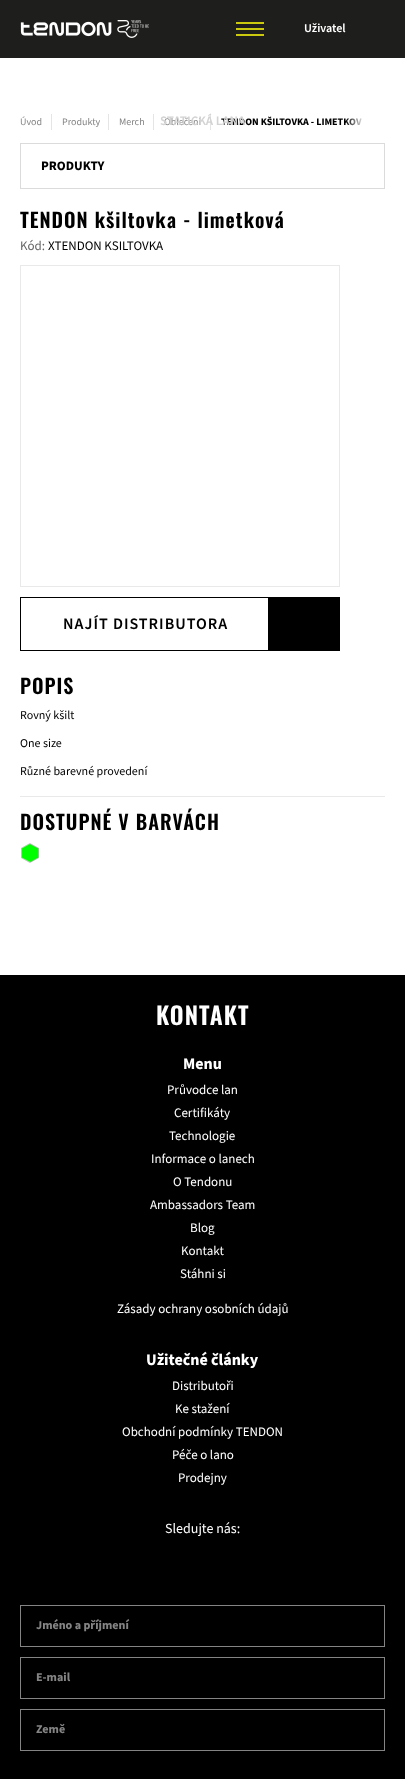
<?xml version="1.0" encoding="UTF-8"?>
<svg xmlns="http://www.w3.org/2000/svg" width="405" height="1779">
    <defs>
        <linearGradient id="g1" gradientUnits="userSpaceOnUse" x1="345" y1="122" x2="385" y2="122"><stop offset="0" stop-color="#FFFFFF" stop-opacity="0"/><stop offset="0.5" stop-color="#FFFFFF"/></linearGradient>
    </defs>
    <rect width="100%" height="100%" fill="#FFFFFF"/>
    <rect x="0" y="0" width="405" height="58" fill="#1E1E1C"/>
    <image x="20" y="20" width="129" height="18" href="img_01.png"/>
    <rect x="236" y="28" width="28" height="2" fill="#CBC810"/>
    <rect x="236" y="22" width="28" height="2" fill="#CBC810"/>
    <rect x="236" y="34" width="28" height="2" fill="#CBC810"/>
    <text x="304" y="32" font-family="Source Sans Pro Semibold" font-size="12" font-weight="600" fill="#FFFFFF">Uživatel</text>
    <text x="164" y="125" font-family="Source Sans Pro" font-size="10" fill="#848484">Oblečení</text>
    <rect x="210" y="114" width="1" height="16" fill="#E4E5E6"/>
    <text x="221" y="125" font-family="Source Sans Pro" font-size="10" font-weight="700" fill="#000000">TENDON KŠILTOVKA - LIMETKOV</text>
    <text x="160" y="125" font-family="Source Sans Pro Semibold" font-size="13" font-weight="600" fill="#D3D3D3">STATICKÁ LANA</text>
    <text x="20" y="125" font-family="Source Sans Pro" font-size="10" fill="#848484">Úvod</text>
    <rect x="51" y="114" width="1" height="16" fill="#E4E5E6"/>
    <text x="62" y="125" font-family="Source Sans Pro" font-size="10" fill="#848484">Produkty</text>
    <rect x="108" y="114" width="1" height="16" fill="#E4E5E6"/>
    <text x="119" y="125" font-family="Source Sans Pro" font-size="10" fill="#848484">Merch</text>
    <rect x="153" y="114" width="1" height="16" fill="#E4E5E6"/>
    <rect x="345" y="118" width="17" height="8" fill="url(#g1)"/>
    <rect x="20.5" y="143.5" width="364" height="45" fill="none" stroke="#DBDBDB"/>
    <text x="41" y="170" font-family="Source Sans Pro" font-size="13" font-weight="700" fill="#000000">PRODUKTY</text>
    <text x="20" y="228" font-family="Oswald" font-size="20" font-weight="600" letter-spacing="1" fill="#000000">TENDON kšiltovka - limetková</text>
    <text x="20" y="250" font-family="Source Sans Pro" font-size="13" fill="#666666">Kód:</text>
    <text x="48" y="250" font-family="Source Sans Pro" font-size="13" fill="#000000">XTENDON KSILTOVKA</text>
    <rect x="20.5" y="265.5" width="319" height="321" fill="none" stroke="#E9E9E9"/>
    <rect x="20.5" y="597.5" width="319" height="53" fill="none" stroke="#000000"/>
    <text x="63" y="629" font-family="Source Sans Pro Semibold" font-size="16" font-weight="600" letter-spacing="1" fill="#000000">NAJÍT DISTRIBUTORA</text>
    <rect x="268" y="598" width="71" height="52" fill="#000000"/>
    <text x="20" y="694" font-family="Oswald" font-size="20" font-weight="600" letter-spacing="1" fill="#000000">POPIS</text>
    <text x="20" y="719" font-family="Source Sans Pro" font-size="12" fill="#000000">Rovný kšilt</text>
    <text x="20" y="747" font-family="Source Sans Pro" font-size="12" fill="#000000">One size</text>
    <text x="20" y="775" font-family="Source Sans Pro" font-size="12" fill="#000000">Různé barevné provedení</text>
    <rect x="20" y="796" width="365" height="1" fill="#E9E9E9"/>
    <text x="20" y="830" font-family="Oswald" font-size="20" font-weight="600" letter-spacing="1" fill="#000000">DOSTUPNÉ V BARVÁCH</text>
    <path d="M 30 843 L 39 848 V 858 L 30 863 L 21 858 V 848 Z" fill="#C1C1C1"/>
    <path d="M 30 844 L 38.5 848.5 V 857.5 L 30.5 862 L 22 857.5 V 848.5 Z" fill="#00FF00"/>
    <rect x="0" y="975" width="405" height="804" fill="#000000"/>
    <text x="156" y="1025" font-family="Oswald" font-size="24" font-weight="600" letter-spacing="1" fill="#FFFFFF">KONTAKT</text>
    <text x="183" y="1069" font-family="Source Sans Pro" font-size="16" font-weight="700" fill="#FFFFFF">Menu</text>
    <text x="167" y="1094" font-family="Source Sans Pro" font-size="13" fill="#FFFFFF">Průvodce lan</text>
    <text x="174" y="1117" font-family="Source Sans Pro" font-size="13" fill="#FFFFFF">Certifikáty</text>
    <text x="169" y="1140" font-family="Source Sans Pro" font-size="13" fill="#FFFFFF">Technologie</text>
    <text x="151" y="1163" font-family="Source Sans Pro" font-size="13" fill="#FFFFFF">Informace o lanech</text>
    <text x="173" y="1186" font-family="Source Sans Pro" font-size="13" fill="#FFFFFF">O Tendonu</text>
    <text x="150" y="1209" font-family="Source Sans Pro" font-size="13" fill="#FFFFFF">Ambassadors Team</text>
    <text x="190" y="1232" font-family="Source Sans Pro" font-size="13" fill="#FFFFFF">Blog</text>
    <text x="181" y="1255" font-family="Source Sans Pro" font-size="13" fill="#FFFFFF">Kontakt</text>
    <text x="180" y="1278" font-family="Source Sans Pro" font-size="13" fill="#FFFFFF">Stáhni si</text>
    <text x="117" y="1313" font-family="Source Sans Pro" font-size="13" fill="#FFFFFF">Zásady ochrany osobních údajů</text>
    <text x="146" y="1365" font-family="Source Sans Pro" font-size="16" font-weight="700" fill="#FFFFFF">Užitečné články</text>
    <text x="172" y="1390" font-family="Source Sans Pro" font-size="13" fill="#FFFFFF">Distributoři</text>
    <text x="175" y="1413" font-family="Source Sans Pro" font-size="13" fill="#FFFFFF">Ke stažení</text>
    <text x="122" y="1436" font-family="Source Sans Pro" font-size="13" fill="#FFFFFF">Obchodní podmínky TENDON</text>
    <text x="172" y="1459" font-family="Source Sans Pro" font-size="13" fill="#FFFFFF">Péče o lano</text>
    <text x="178" y="1482" font-family="Source Sans Pro" font-size="13" fill="#FFFFFF">Prodejny</text>
    <text x="165" y="1533" font-family="Source Sans Pro" font-size="14" fill="#FFFFFF">Sledujte nás:</text>
    <rect x="20.5" y="1605.5" width="364" height="41" fill="none" stroke="#848484"/>
    <text x="36" y="1629" font-family="Source Sans Pro" font-size="12" font-weight="700" fill="#848484">Jméno a příjmení</text>
    <rect x="20.5" y="1657.5" width="364" height="41" fill="none" stroke="#848484"/>
    <text x="36" y="1681" font-family="Source Sans Pro" font-size="12" font-weight="700" fill="#848484">E-mail</text>
    <rect x="20.5" y="1709.5" width="364" height="41" fill="none" stroke="#848484"/>
    <text x="36" y="1733" font-family="Source Sans Pro" font-size="12" font-weight="700" fill="#848484">Země</text>
</svg>
